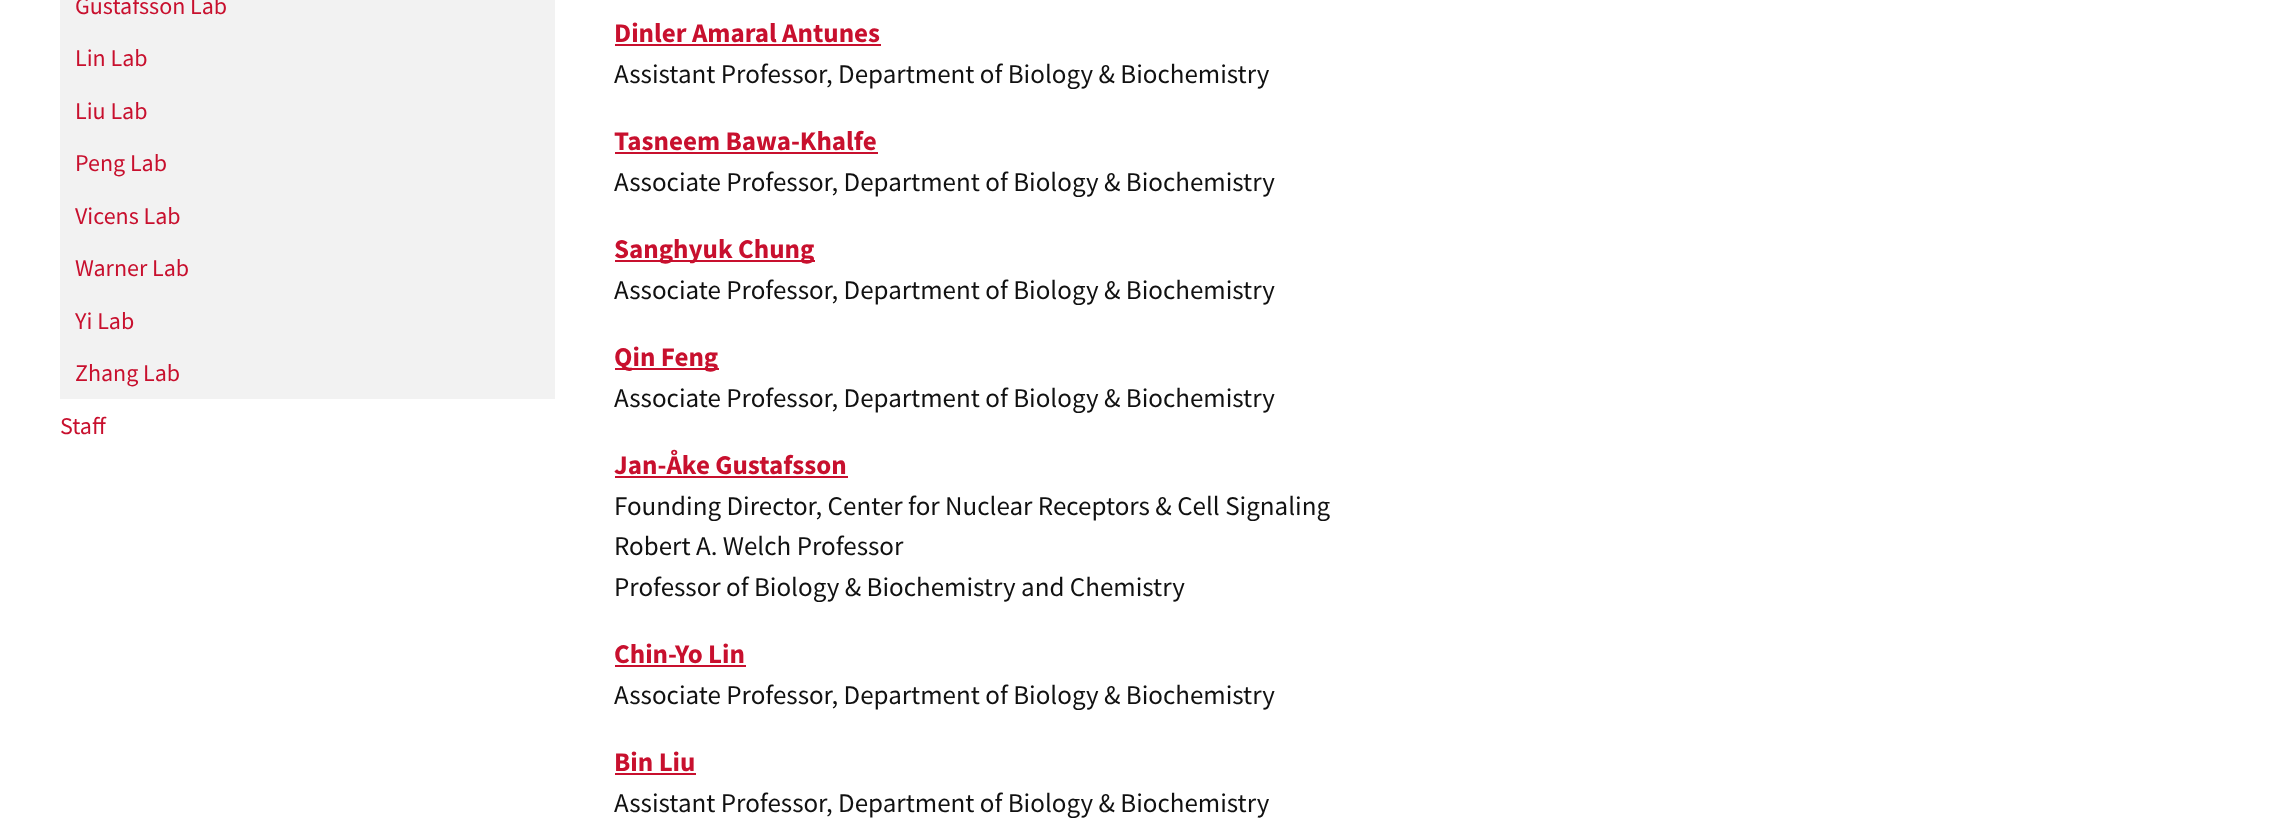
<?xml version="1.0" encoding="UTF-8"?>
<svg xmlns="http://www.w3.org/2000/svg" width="2277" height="824">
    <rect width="100%" height="100%" fill="#FFFFFF"/>
    <rect x="60" y="0" width="495" height="399" fill="#F2F2F2"/>
    <text x="75" y="14" font-family="Source Sans Pro" font-size="24" fill="#C8102E">Gustafsson Lab</text>
    <text x="75" y="66" font-family="Source Sans Pro" font-size="24" fill="#C8102E">Lin Lab</text>
    <text x="75" y="119" font-family="Source Sans Pro" font-size="24" fill="#C8102E">Liu Lab</text>
    <text x="75" y="171" font-family="Source Sans Pro" font-size="24" fill="#C8102E">Peng Lab</text>
    <text x="75" y="224" font-family="Source Sans Pro" font-size="24" fill="#C8102E">Vicens Lab</text>
    <text x="75" y="276" font-family="Source Sans Pro" font-size="24" fill="#C8102E">Warner Lab</text>
    <text x="75" y="329" font-family="Source Sans Pro" font-size="24" fill="#C8102E">Yi Lab</text>
    <text x="75" y="381" font-family="Source Sans Pro" font-size="24" fill="#C8102E">Zhang Lab</text>
    <text x="60" y="434" font-family="Source Sans Pro" font-size="24" fill="#C8102E">Staff</text>
    <text x="614" y="42" font-family="Source Sans Pro" font-size="27" font-weight="700" fill="#C8102E">Dinler Amaral Antunes</text>
    <rect x="615" y="44" width="266" height="2" fill="#C8102E"/>
    <text x="614" y="83" font-family="Source Sans Pro" font-size="27" fill="#111111">Assistant Professor, Department of Biology &amp; Biochemistry</text>
    <text x="614" y="150" font-family="Source Sans Pro" font-size="27" font-weight="700" fill="#C8102E">Tasneem Bawa-Khalfe</text>
    <rect x="615" y="152" width="263" height="2" fill="#C8102E"/>
    <text x="614" y="191" font-family="Source Sans Pro" font-size="27" fill="#111111">Associate Professor, Department of Biology &amp; Biochemistry</text>
    <rect x="615" y="260" width="200" height="2" fill="#C8102E"/>
    <text x="614" y="258" font-family="Source Sans Pro" font-size="27" font-weight="700" fill="#C8102E">Sanghyuk Chung</text>
    <text x="614" y="299" font-family="Source Sans Pro" font-size="27" fill="#111111">Associate Professor, Department of Biology &amp; Biochemistry</text>
    <rect x="615" y="368" width="104" height="2" fill="#C8102E"/>
    <text x="614" y="366" font-family="Source Sans Pro" font-size="27" font-weight="700" fill="#C8102E">Qin Feng</text>
    <text x="614" y="407" font-family="Source Sans Pro" font-size="27" fill="#111111">Associate Professor, Department of Biology &amp; Biochemistry</text>
    <text x="614" y="474" font-family="Source Sans Pro" font-size="27" font-weight="700" fill="#C8102E">Jan-Åke Gustafsson</text>
    <rect x="615" y="476" width="233" height="2" fill="#C8102E"/>
    <text font-family="Source Sans Pro" font-size="27" fill="#111111">
        <tspan x="614" y="515">Founding Director, Center for Nuclear Receptors &amp; Cell Signaling</tspan>
        <tspan x="614" y="555">Robert A. Welch Professor</tspan>
        <tspan x="614" y="596">Professor of Biology &amp; Biochemistry and Chemistry</tspan>
    </text>
    <text x="614" y="663" font-family="Source Sans Pro" font-size="27" font-weight="700" fill="#C8102E">Chin-Yo Lin</text>
    <rect x="615" y="665" width="131" height="2" fill="#C8102E"/>
    <text x="614" y="704" font-family="Source Sans Pro" font-size="27" fill="#111111">Associate Professor, Department of Biology &amp; Biochemistry</text>
    <text x="614" y="771" font-family="Source Sans Pro" font-size="27" font-weight="700" fill="#C8102E">Bin Liu</text>
    <rect x="615" y="773" width="81" height="2" fill="#C8102E"/>
    <text x="614" y="812" font-family="Source Sans Pro" font-size="27" fill="#111111">Assistant Professor, Department of Biology &amp; Biochemistry</text>
</svg>
